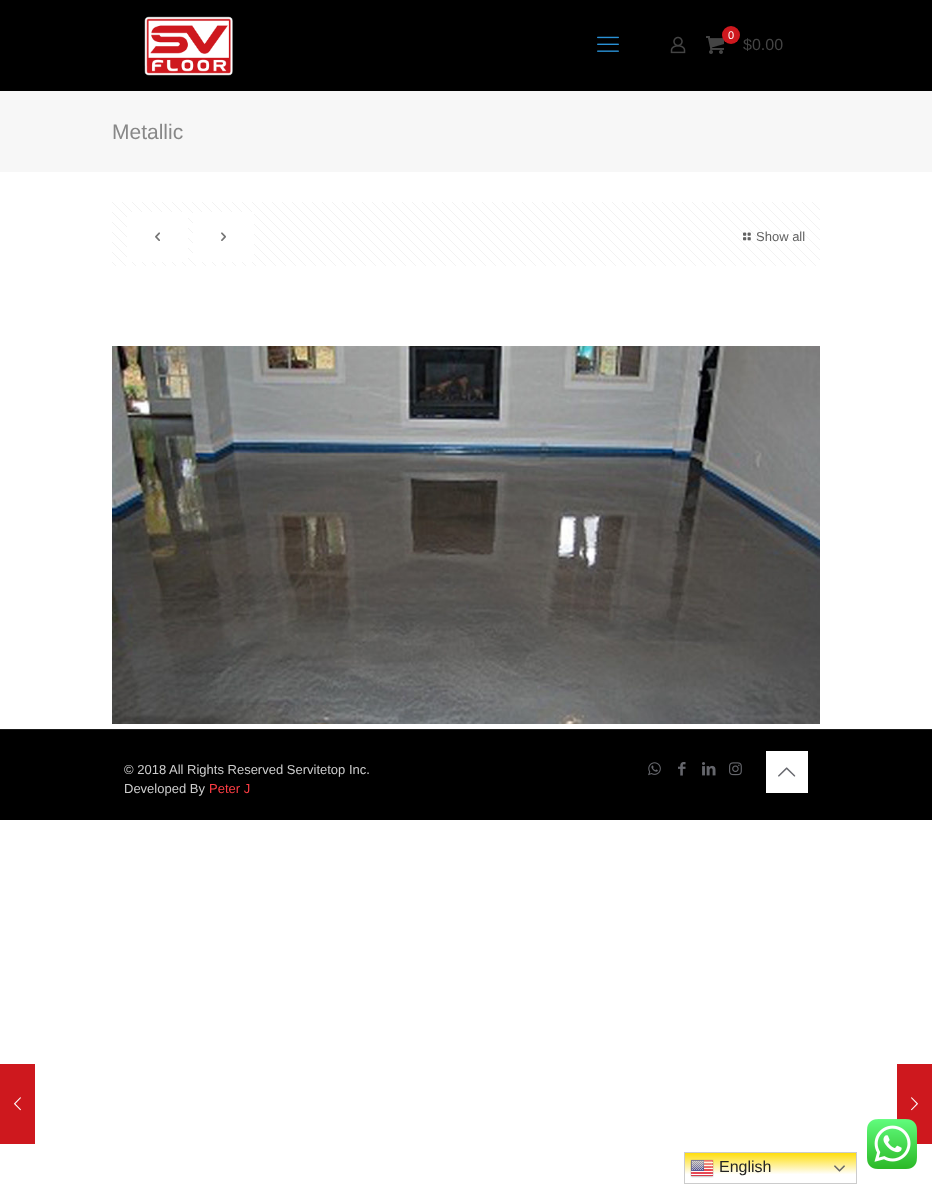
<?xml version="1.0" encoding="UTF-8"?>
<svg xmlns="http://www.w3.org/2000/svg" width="932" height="1184">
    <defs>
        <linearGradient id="g1" gradientUnits="userSpaceOnUse" x1="771" y1="1152" x2="771" y2="1184"><stop offset="0" stop-color="#FFDC00"/><stop offset="0.7" stop-color="#FFFFFF"/></linearGradient>
    </defs>
    <rect width="100%" height="100%" fill="#FFFFFF"/>
    <rect x="0" y="0" width="932" height="91" fill="#000000"/>
    <image x="144" y="16" width="89" height="60" href="img_01.png"/>
    <image x="597" y="36" width="22" height="16" href="img_02.png"/>
    <image x="670" y="36" width="16" height="18" href="img_03.png"/>
    <image x="706" y="36" width="18" height="18" href="img_04.png"/>
    <circle cx="731" cy="35" r="9" fill="#CE181E"/>
    <text x="728" y="39" font-family="Liberation Sans" font-size="11" fill="#FFFFFF">0</text>
    <text x="743" y="50" font-family="Liberation Sans" font-size="16" fill="#444444">$0.00</text>
    <rect x="0" y="91" width="932" height="81" fill="#F7F7F7"/>
    <text x="112" y="139" font-family="Liberation Sans" font-size="21" fill="#888888">Metallic</text>
    <image x="112" y="202" width="708" height="64" href="img_05.png"/>
    <rect x="127" y="212" width="61" height="50" fill="#FFFFFF"/>
    <image x="155" y="232" width="5" height="9" href="img_06.png"/>
    <rect x="193" y="212" width="61" height="50" fill="#FFFFFF"/>
    <image x="221" y="232" width="5" height="9" href="img_07.png"/>
    <image x="743" y="232" width="8" height="9" href="img_08.png"/>
    <text x="756" y="241" font-family="Liberation Sans" font-size="13" fill="#626262">Show all</text>
    <image x="112" y="346" width="708" height="378" href="img_09.png"/>
    <rect x="0" y="730" width="932" height="90" fill="#000000"/>
    <rect x="0" y="729" width="932" height="1" fill="#1A1A1A"/>
    <text font-family="Liberation Sans" font-size="13" fill="#CCCCCC">
        <tspan x="124" y="774">© 2018 All Rights Reserved Servitetop Inc.</tspan>
        <tspan x="124" y="793">Developed By</tspan>
    </text>
    <text x="209" y="793" font-family="Liberation Sans" font-size="13" fill="#FF3D44">Peter J</text>
    <image x="648" y="762" width="13" height="14" href="img_10.png"/>
    <image x="678" y="762" width="8" height="14" href="img_11.png"/>
    <image x="702" y="762" width="14" height="14" href="img_12.png"/>
    <image x="729" y="762" width="13" height="14" href="img_13.png"/>
    <rect x="766" y="751" width="42" height="42" fill="#FFFFFF"/>
    <image x="778" y="767" width="18" height="10" href="img_14.png"/>
    <rect x="0" y="1064" width="35" height="80" fill="#CE181E"/>
    <image x="14" y="1097" width="7" height="14" href="img_15.png"/>
    <rect x="897" y="1064" width="35" height="80" fill="#CE181E"/>
    <image x="911" y="1097" width="7" height="14" href="img_16.png"/>
    <rect x="685" y="1153" width="171" height="21" fill="url(#g1)"/>
    <rect x="684.5" y="1152.5" width="172" height="31" fill="none" stroke="#CCCCCC"/>
    <image x="690" y="1159" width="24" height="19" href="img_17.png"/>
    <text x="719" y="1172" font-family="Liberation Sans" font-size="16" fill="#232323">English</text>
    <image x="834" y="1165" width="11" height="7" href="img_18.png"/>
    <image x="867" y="1119" width="50" height="50" href="img_19.png"/>
</svg>
